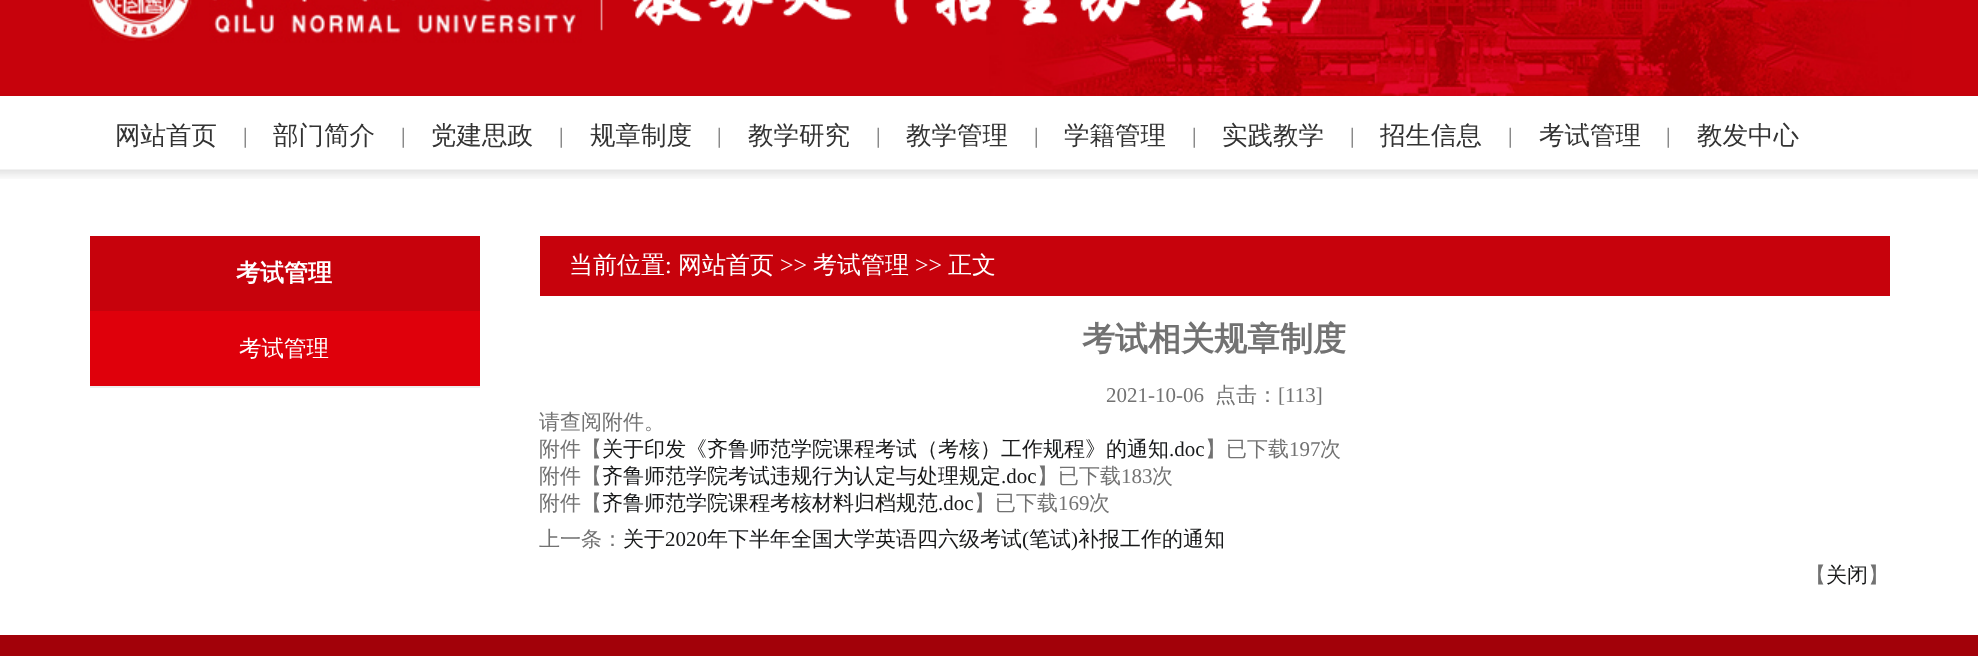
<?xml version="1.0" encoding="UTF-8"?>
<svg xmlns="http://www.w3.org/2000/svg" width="1978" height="656">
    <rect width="100%" height="100%" fill="#FFFFFF"/>
    <image x="0" y="0" width="1978" height="96" href="img_01.png"/>
    <image x="0" y="169" width="1978" height="10" href="img_02.png"/>
    <text x="115" y="144" font-family="WenQuanYi Zen Hei" font-size="25.5" font-weight="500" fill="#333333">网站首页</text>
    <text x="243" y="143" font-family="Liberation Serif" font-size="22" fill="#666666">|</text>
    <text x="273" y="144" font-family="WenQuanYi Zen Hei" font-size="25.5" font-weight="500" fill="#333333">部门简介</text>
    <text x="401" y="143" font-family="Liberation Serif" font-size="22" fill="#666666">|</text>
    <text x="431" y="144" font-family="WenQuanYi Zen Hei" font-size="25.5" font-weight="500" fill="#333333">党建思政</text>
    <text x="559" y="143" font-family="Liberation Serif" font-size="22" fill="#666666">|</text>
    <text x="590" y="144" font-family="WenQuanYi Zen Hei" font-size="25.5" font-weight="500" fill="#333333">规章制度</text>
    <text x="717" y="143" font-family="Liberation Serif" font-size="22" fill="#666666">|</text>
    <text x="748" y="144" font-family="WenQuanYi Zen Hei" font-size="25.5" font-weight="500" fill="#333333">教学研究</text>
    <text x="876" y="143" font-family="Liberation Serif" font-size="22" fill="#666666">|</text>
    <text x="906" y="144" font-family="WenQuanYi Zen Hei" font-size="25.5" font-weight="500" fill="#333333">教学管理</text>
    <text x="1034" y="143" font-family="Liberation Serif" font-size="22" fill="#666666">|</text>
    <text x="1064" y="144" font-family="WenQuanYi Zen Hei" font-size="25.5" font-weight="500" fill="#333333">学籍管理</text>
    <text x="1192" y="143" font-family="Liberation Serif" font-size="22" fill="#666666">|</text>
    <text x="1222" y="144" font-family="WenQuanYi Zen Hei" font-size="25.5" font-weight="500" fill="#333333">实践教学</text>
    <text x="1350" y="143" font-family="Liberation Serif" font-size="22" fill="#666666">|</text>
    <text x="1380" y="144" font-family="WenQuanYi Zen Hei" font-size="25.5" font-weight="500" fill="#333333">招生信息</text>
    <text x="1508" y="143" font-family="Liberation Serif" font-size="22" fill="#666666">|</text>
    <text x="1539" y="144" font-family="WenQuanYi Zen Hei" font-size="25.5" font-weight="500" fill="#333333">考试管理</text>
    <text x="1666" y="143" font-family="Liberation Serif" font-size="22" fill="#666666">|</text>
    <text x="1697" y="144" font-family="WenQuanYi Zen Hei" font-size="25.5" font-weight="500" fill="#333333">教发中心</text>
    <rect x="90" y="236" width="390" height="75" fill="#C7020C"/>
    <text x="236" y="281" font-family="WenQuanYi Zen Hei" font-size="24" font-weight="700" fill="#FFFFFF">考试管理</text>
    <rect x="90" y="311" width="390" height="75" fill="#DF000B"/>
    <rect x="90" y="386" width="390" height="2" fill="#EEEEEE"/>
    <text x="239" y="356" font-family="WenQuanYi Zen Hei" font-size="22.5" font-weight="500" fill="#FFFFFF">考试管理</text>
    <rect x="540" y="236" width="1350" height="60" fill="#C7020C"/>
    <text x="569" y="273" font-family="WenQuanYi Zen Hei" font-size="24" font-weight="500" fill="#FFFFFF">当前位置</text>
    <text x="665" y="273" font-family="Liberation Serif" font-size="24" fill="#FFFFFF">:</text>
    <text x="678" y="273" font-family="WenQuanYi Zen Hei" font-size="24" font-weight="500" fill="#FFFFFF">网站首页</text>
    <text x="780" y="273" font-family="Liberation Serif" font-size="24" fill="#FFFFFF">&gt;&gt;</text>
    <text x="813" y="273" font-family="WenQuanYi Zen Hei" font-size="24" font-weight="500" fill="#FFFFFF">考试管理</text>
    <text x="915" y="273" font-family="Liberation Serif" font-size="24" fill="#FFFFFF">&gt;&gt;</text>
    <text x="948" y="273" font-family="WenQuanYi Zen Hei" font-size="24" font-weight="500" fill="#FFFFFF">正文</text>
    <text x="1082" y="350" font-family="WenQuanYi Zen Hei" font-size="33" font-weight="700" fill="#727272">考试相关规章制度</text>
    <text x="1106" y="402" font-family="Liberation Serif" font-size="21" fill="#727272">2021-10-06</text>
    <text x="1215" y="402" font-family="WenQuanYi Zen Hei" font-size="21" font-weight="500" fill="#727272">点击：</text>
    <text x="1278" y="402" font-family="Liberation Serif" font-size="21" fill="#727272">[113]</text>
    <text font-family="WenQuanYi Zen Hei" font-size="21" font-weight="500" fill="#727272">
        <tspan x="539" y="429">请查阅附件。</tspan>
        <tspan x="539" y="456">附件【</tspan>
    </text>
    <text x="602" y="456" font-family="WenQuanYi Zen Hei" font-size="21" font-weight="500" fill="#18191A">关于印发《齐鲁师范学院课程考试（考核）工作规程》的通知</text>
    <text x="1169" y="456" font-family="Liberation Serif" font-size="21" fill="#18191A">.doc</text>
    <text x="1205" y="456" font-family="WenQuanYi Zen Hei" font-size="21" font-weight="500" fill="#727272">】已下载</text>
    <text x="1289" y="456" font-family="Liberation Serif" font-size="21" fill="#727272">197</text>
    <text x="1320" y="456" font-family="WenQuanYi Zen Hei" font-size="21" font-weight="500" fill="#727272">次</text>
    <text x="539" y="483" font-family="WenQuanYi Zen Hei" font-size="21" font-weight="500" fill="#727272">附件【</text>
    <text x="602" y="483" font-family="WenQuanYi Zen Hei" font-size="21" font-weight="500" fill="#18191A">齐鲁师范学院考试违规行为认定与处理规定</text>
    <text x="1001" y="483" font-family="Liberation Serif" font-size="21" fill="#18191A">.doc</text>
    <text x="1037" y="483" font-family="WenQuanYi Zen Hei" font-size="21" font-weight="500" fill="#727272">】已下载</text>
    <text x="1121" y="483" font-family="Liberation Serif" font-size="21" fill="#727272">183</text>
    <text x="1152" y="483" font-family="WenQuanYi Zen Hei" font-size="21" font-weight="500" fill="#727272">次</text>
    <text x="539" y="510" font-family="WenQuanYi Zen Hei" font-size="21" font-weight="500" fill="#727272">附件【</text>
    <text x="602" y="510" font-family="WenQuanYi Zen Hei" font-size="21" font-weight="500" fill="#18191A">齐鲁师范学院课程考核材料归档规范</text>
    <text x="938" y="510" font-family="Liberation Serif" font-size="21" fill="#18191A">.doc</text>
    <text x="974" y="510" font-family="WenQuanYi Zen Hei" font-size="21" font-weight="500" fill="#727272">】已下载</text>
    <text x="1058" y="510" font-family="Liberation Serif" font-size="21" fill="#727272">169</text>
    <text x="1089" y="510" font-family="WenQuanYi Zen Hei" font-size="21" font-weight="500" fill="#727272">次</text>
    <text x="539" y="546" font-family="WenQuanYi Zen Hei" font-size="21" font-weight="500" fill="#727272">上一条：</text>
    <text x="623" y="546" font-family="WenQuanYi Zen Hei" font-size="21" font-weight="500" fill="#18191A">关于</text>
    <text x="665" y="546" font-family="Liberation Serif" font-size="21" fill="#18191A">2020</text>
    <text x="707" y="546" font-family="WenQuanYi Zen Hei" font-size="21" font-weight="500" fill="#18191A">年下半年全国大学英语四六级考试</text>
    <text x="1022" y="546" font-family="Liberation Serif" font-size="21" fill="#18191A">(</text>
    <text x="1029" y="546" font-family="WenQuanYi Zen Hei" font-size="21" font-weight="500" fill="#18191A">笔试</text>
    <text x="1071" y="546" font-family="Liberation Serif" font-size="21" fill="#18191A">)</text>
    <text x="1078" y="546" font-family="WenQuanYi Zen Hei" font-size="21" font-weight="500" fill="#18191A">补报工作的通知</text>
    <text x="1805" y="582" font-family="WenQuanYi Zen Hei" font-size="21" font-weight="500" fill="#727272">【</text>
    <text x="1826" y="582" font-family="WenQuanYi Zen Hei" font-size="21" font-weight="500" fill="#18191A">关闭</text>
    <text x="1868" y="582" font-family="WenQuanYi Zen Hei" font-size="21" font-weight="500" fill="#727272">】</text>
    <rect x="0" y="635" width="1978" height="21" fill="#A20109"/>
</svg>
